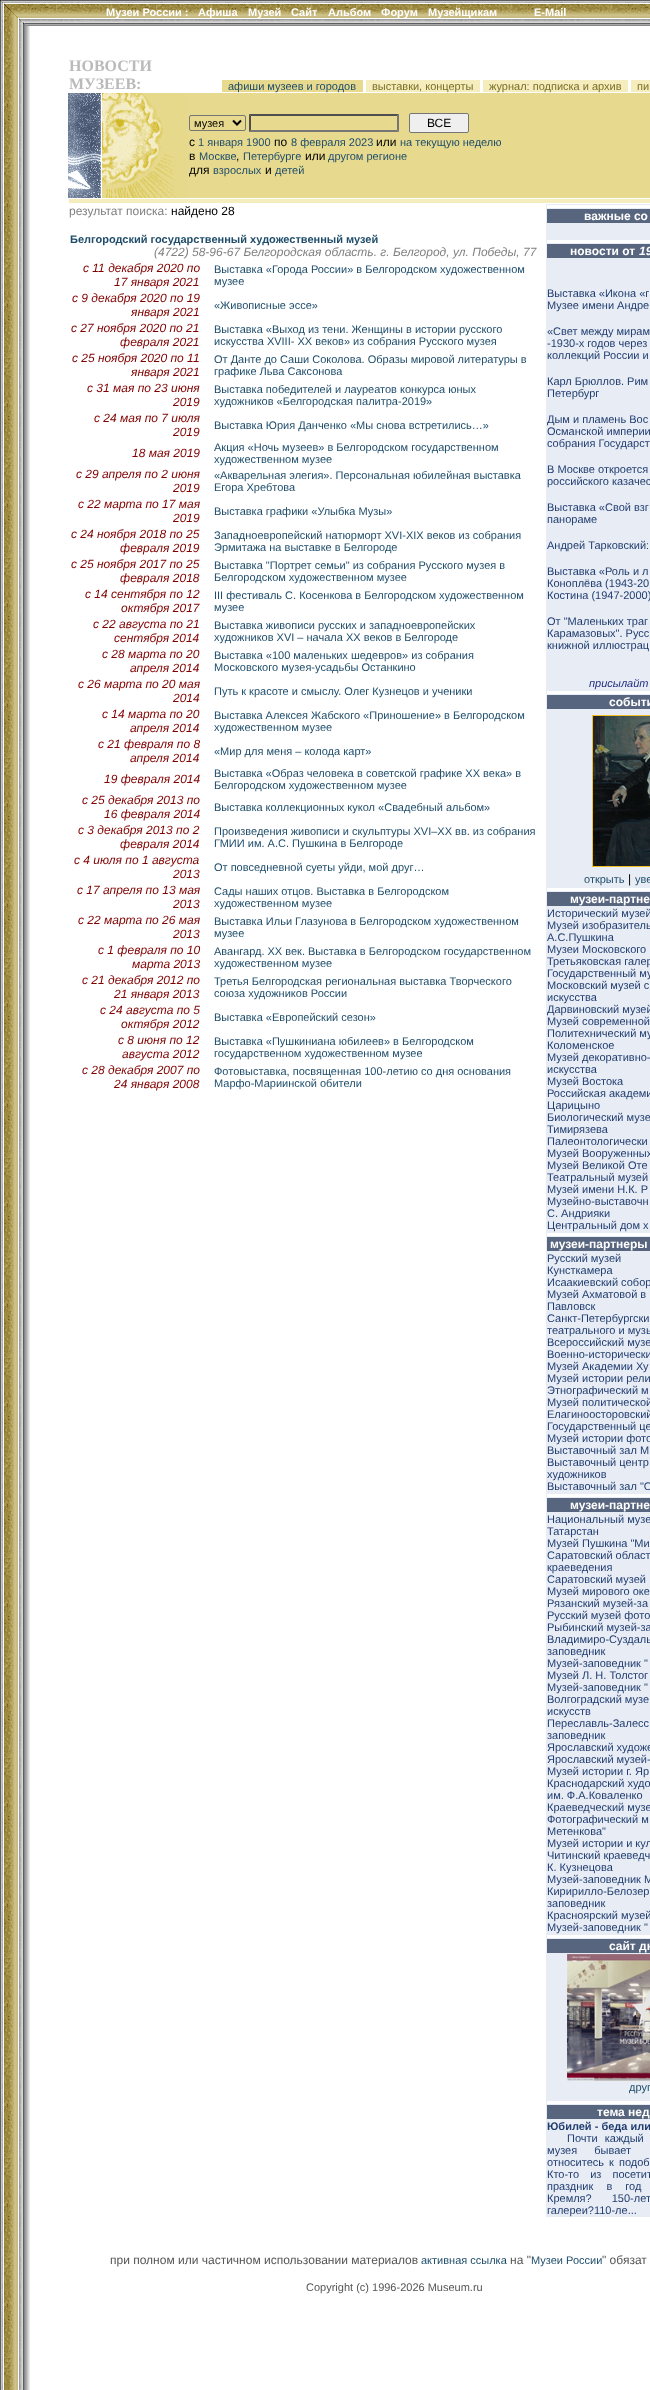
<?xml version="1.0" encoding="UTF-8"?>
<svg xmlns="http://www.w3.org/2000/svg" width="650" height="2390">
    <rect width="100%" height="100%" fill="#FFFFFF"/>
    <image x="0" y="25" width="30" height="2365" href="img_01.png"/>
    <image x="0" y="0" width="25" height="25" href="img_02.png"/>
    <image x="25" y="0" width="625" height="25" href="img_03.png"/>
    <text x="106" y="16" font-family="Liberation Sans" font-size="11" font-weight="700" fill="#FFFFFF">Музеи России :</text>
    <text x="198" y="16" font-family="Liberation Sans" font-size="11" font-weight="700" fill="#FFFFFF">Афиша</text>
    <text x="248" y="16" font-family="Liberation Sans" font-size="11" font-weight="700" fill="#FFFFFF">Музей</text>
    <text x="291" y="16" font-family="Liberation Sans" font-size="11" font-weight="700" fill="#FFFFFF">Сайт</text>
    <text x="328" y="16" font-family="Liberation Sans" font-size="11" font-weight="700" fill="#FFFFFF">Альбом</text>
    <text x="381" y="16" font-family="Liberation Sans" font-size="11" font-weight="700" fill="#FFFFFF">Форум</text>
    <text x="428" y="16" font-family="Liberation Sans" font-size="11" font-weight="700" fill="#FFFFFF">Музейщикам</text>
    <text x="534" y="16" font-family="Liberation Sans" font-size="11" font-weight="700" fill="#FFFFFF">E-Mail</text>
    <rect x="25" y="25" width="625" height="1" fill="#888888"/>
    <text font-family="Liberation Serif" font-size="16" font-weight="700" fill="#BABABA">
        <tspan x="69" y="71">НОВОСТИ</tspan>
        <tspan x="69" y="89">МУЗЕЕВ:</tspan>
    </text>
    <rect x="222" y="80" width="141" height="12" fill="#E7DA8E"/>
    <text x="228" y="90" font-family="Liberation Sans" font-size="11" fill="#1E4C6A">афиши музеев и городов</text>
    <rect x="366" y="80" width="114" height="12" fill="#F5EDBD"/>
    <text x="372" y="90" font-family="Liberation Sans" font-size="11" fill="#796E24">выставки, концерты</text>
    <rect x="483" y="80" width="145" height="12" fill="#F5EDBD"/>
    <text x="489" y="90" font-family="Liberation Sans" font-size="11" fill="#796E24">журнал: подписка и архив</text>
    <rect x="631" y="80" width="19" height="12" fill="#F5EDBD"/>
    <text x="637" y="90" font-family="Liberation Sans" font-size="11" fill="#796E24">пи</text>
    <image x="68" y="93" width="33" height="105" href="img_04.png"/>
    <image x="102" y="93" width="85" height="105" href="img_05.png"/>
    <rect x="187" y="93" width="463" height="105" fill="#E7DA8E"/>
    <rect x="189.5" y="115.5" width="56" height="15" rx="1.5" fill="none" stroke="#767676"/>
    <path d="M 233 120.5 L 237 124.5 L 241 120.5" fill="none" stroke="#000000" stroke-width="2"/>
    <text x="194" y="127" font-family="Liberation Sans" font-size="11" fill="#000000">музея</text>
    <path d="M 249 114 H 399 L 397 116 H 251 Z" fill="#4F4F4F"/>
    <path d="M 399 114 V 132 L 397 130 V 116 Z" fill="#767676"/>
    <path d="M 399 132 H 249 L 251 130 H 397 Z" fill="#767676"/>
    <path d="M 249 132 V 114 L 251 116 V 130 Z" fill="#4F4F4F"/>
    <rect x="409.5" y="113.5" width="59" height="19" rx="1.5" fill="#EFEFEF" stroke="#767676"/>
    <text x="427" y="127" font-family="Liberation Sans" font-size="12" fill="#000000">ВСЕ</text>
    <text x="189" y="146" font-family="Liberation Sans" font-size="12" fill="#000000">с</text>
    <text x="198" y="146" font-family="Liberation Sans" font-size="11" fill="#1E4C6A">1 января 1900</text>
    <text x="274" y="146" font-family="Liberation Sans" font-size="12" fill="#000000">по</text>
    <text x="291" y="146" font-family="Liberation Sans" font-size="11" fill="#1E4C6A">8 февраля 2023</text>
    <text x="376" y="146" font-family="Liberation Sans" font-size="12" fill="#000000">или</text>
    <text x="400" y="146" font-family="Liberation Sans" font-size="11" fill="#1E4C6A">на текущую неделю</text>
    <text x="189" y="160" font-family="Liberation Sans" font-size="12" fill="#000000">в</text>
    <text x="199" y="160" font-family="Liberation Sans" font-size="11" fill="#1E4C6A">Москве</text>
    <text x="236" y="160" font-family="Liberation Sans" font-size="12" fill="#000000">,</text>
    <text x="243" y="160" font-family="Liberation Sans" font-size="11" fill="#1E4C6A">Петербурге</text>
    <text x="305" y="160" font-family="Liberation Sans" font-size="12" fill="#000000">или</text>
    <text x="328" y="160" font-family="Liberation Sans" font-size="11" fill="#1E4C6A">другом регионе</text>
    <text x="189" y="174" font-family="Liberation Sans" font-size="12" fill="#000000">для</text>
    <text x="213" y="174" font-family="Liberation Sans" font-size="11" fill="#1E4C6A">взрослых</text>
    <text x="265" y="174" font-family="Liberation Sans" font-size="12" fill="#000000">и</text>
    <text x="275" y="174" font-family="Liberation Sans" font-size="11" fill="#1E4C6A">детей</text>
    <rect x="69" y="199" width="581" height="4" fill="#F5EDBD"/>
    <text x="69" y="215" font-family="Liberation Sans" font-size="12" fill="#808080">результат поиска:</text>
    <text x="171" y="215" font-family="Liberation Sans" font-size="12" fill="#000000">найдено 28</text>
    <text x="70" y="243" font-family="Liberation Sans" font-size="11" font-weight="700" fill="#1E4C6A">Белгородский государственный художественный музей</text>
    <text x="154" y="256" font-family="Liberation Sans" font-size="12" font-style="italic" fill="#808080">(4722) 58-96-67 Белгородская область. г. Белгород, ул. Победы, 77</text>
    <text x="83" y="272" font-family="Liberation Sans" font-size="12" font-style="italic" fill="#800000">c 11 декабря 2020 по</text>
    <text x="114" y="286" font-family="Liberation Sans" font-size="12" font-style="italic" fill="#800000">17 января 2021</text>
    <text font-family="Liberation Sans" font-size="11" fill="#1E4C6A">
        <tspan x="214" y="273">Выставка «Города России» в Белгородском художественном</tspan>
        <tspan x="214" y="285">музее</tspan>
    </text>
    <text x="72" y="302" font-family="Liberation Sans" font-size="12" font-style="italic" fill="#800000">c 9 декабря 2020 по 19</text>
    <text x="131" y="316" font-family="Liberation Sans" font-size="12" font-style="italic" fill="#800000">января 2021</text>
    <text x="214" y="309" font-family="Liberation Sans" font-size="11" fill="#1E4C6A">«Живописные эссе»</text>
    <text x="71" y="332" font-family="Liberation Sans" font-size="12" font-style="italic" fill="#800000">c 27 ноября 2020 по 21</text>
    <text x="120" y="346" font-family="Liberation Sans" font-size="12" font-style="italic" fill="#800000">февраля 2021</text>
    <text font-family="Liberation Sans" font-size="11" fill="#1E4C6A">
        <tspan x="214" y="333">Выставка «Выход из тени. Женщины в истории русского</tspan>
        <tspan x="214" y="345">искусства XVIII- XX веков» из собрания Русского музея</tspan>
    </text>
    <text x="72" y="362" font-family="Liberation Sans" font-size="12" font-style="italic" fill="#800000">c 25 ноября 2020 по 11</text>
    <text x="131" y="376" font-family="Liberation Sans" font-size="12" font-style="italic" fill="#800000">января 2021</text>
    <text font-family="Liberation Sans" font-size="11" fill="#1E4C6A">
        <tspan x="214" y="363">От Данте до Саши Соколова. Образы мировой литературы в</tspan>
        <tspan x="214" y="375">графике Льва Саксонова</tspan>
    </text>
    <text x="87" y="392" font-family="Liberation Sans" font-size="12" font-style="italic" fill="#800000">c 31 мая по 23 июня</text>
    <text x="173" y="406" font-family="Liberation Sans" font-size="12" font-style="italic" fill="#800000">2019</text>
    <text font-family="Liberation Sans" font-size="11" fill="#1E4C6A">
        <tspan x="214" y="393">Выставка победителей и лауреатов конкурса юных</tspan>
        <tspan x="214" y="405">художников «Белгородская палитра-2019»</tspan>
    </text>
    <text x="94" y="422" font-family="Liberation Sans" font-size="12" font-style="italic" fill="#800000">c 24 мая по 7 июля</text>
    <text x="173" y="436" font-family="Liberation Sans" font-size="12" font-style="italic" fill="#800000">2019</text>
    <text x="214" y="429" font-family="Liberation Sans" font-size="11" fill="#1E4C6A">Выставка Юрия Данченко «Мы снова встретились…»</text>
    <text x="132" y="457" font-family="Liberation Sans" font-size="12" font-style="italic" fill="#800000">18 мая 2019</text>
    <text font-family="Liberation Sans" font-size="11" fill="#1E4C6A">
        <tspan x="214" y="451">Акция «Ночь музеев» в Белгородском государственном</tspan>
        <tspan x="214" y="463">художественном музее</tspan>
    </text>
    <text x="76" y="478" font-family="Liberation Sans" font-size="12" font-style="italic" fill="#800000">c 29 апреля по 2 июня</text>
    <text x="173" y="492" font-family="Liberation Sans" font-size="12" font-style="italic" fill="#800000">2019</text>
    <text font-family="Liberation Sans" font-size="11" fill="#1E4C6A">
        <tspan x="214" y="479">«Акварельная элегия». Персональная юбилейная выставка</tspan>
        <tspan x="214" y="491">Егора Хребтова</tspan>
    </text>
    <text x="78" y="508" font-family="Liberation Sans" font-size="12" font-style="italic" fill="#800000">c 22 марта по 17 мая</text>
    <text x="173" y="522" font-family="Liberation Sans" font-size="12" font-style="italic" fill="#800000">2019</text>
    <text x="214" y="515" font-family="Liberation Sans" font-size="11" fill="#1E4C6A">Выставка графики «Улыбка Музы»</text>
    <text x="71" y="538" font-family="Liberation Sans" font-size="12" font-style="italic" fill="#800000">c 24 ноября 2018 по 25</text>
    <text x="120" y="552" font-family="Liberation Sans" font-size="12" font-style="italic" fill="#800000">февраля 2019</text>
    <text font-family="Liberation Sans" font-size="11" fill="#1E4C6A">
        <tspan x="214" y="539">Западноевропейский натюрморт XVI-XIX веков из собрания</tspan>
        <tspan x="214" y="551">Эрмитажа на выставке в Белгороде</tspan>
    </text>
    <text x="71" y="568" font-family="Liberation Sans" font-size="12" font-style="italic" fill="#800000">c 25 ноября 2017 по 25</text>
    <text x="120" y="582" font-family="Liberation Sans" font-size="12" font-style="italic" fill="#800000">февраля 2018</text>
    <text font-family="Liberation Sans" font-size="11" fill="#1E4C6A">
        <tspan x="214" y="569">Выставка "Портрет семьи" из собрания Русского музея в</tspan>
        <tspan x="214" y="581">Белгородском художественном музее</tspan>
    </text>
    <text x="85" y="598" font-family="Liberation Sans" font-size="12" font-style="italic" fill="#800000">c 14 сентября по 12</text>
    <text x="121" y="612" font-family="Liberation Sans" font-size="12" font-style="italic" fill="#800000">октября 2017</text>
    <text font-family="Liberation Sans" font-size="11" fill="#1E4C6A">
        <tspan x="214" y="599">III фестиваль С. Косенкова в Белгородском художественном</tspan>
        <tspan x="214" y="611">музее</tspan>
    </text>
    <text x="93" y="628" font-family="Liberation Sans" font-size="12" font-style="italic" fill="#800000">c 22 августа по 21</text>
    <text x="114" y="642" font-family="Liberation Sans" font-size="12" font-style="italic" fill="#800000">сентября 2014</text>
    <text font-family="Liberation Sans" font-size="11" fill="#1E4C6A">
        <tspan x="214" y="629">Выставка живописи русских и западноевропейских</tspan>
        <tspan x="214" y="641">художников XVI – начала XX веков в Белгороде</tspan>
    </text>
    <text x="102" y="658" font-family="Liberation Sans" font-size="12" font-style="italic" fill="#800000">c 28 марта по 20</text>
    <text x="130" y="672" font-family="Liberation Sans" font-size="12" font-style="italic" fill="#800000">апреля 2014</text>
    <text font-family="Liberation Sans" font-size="11" fill="#1E4C6A">
        <tspan x="214" y="659">Выставка «100 маленьких шедевров» из собрания</tspan>
        <tspan x="214" y="671">Московского музея-усадьбы Останкино</tspan>
    </text>
    <text x="78" y="688" font-family="Liberation Sans" font-size="12" font-style="italic" fill="#800000">c 26 марта по 20 мая</text>
    <text x="173" y="702" font-family="Liberation Sans" font-size="12" font-style="italic" fill="#800000">2014</text>
    <text x="214" y="695" font-family="Liberation Sans" font-size="11" fill="#1E4C6A">Путь к красоте и смыслу. Олег Кузнецов и ученики</text>
    <text x="102" y="718" font-family="Liberation Sans" font-size="12" font-style="italic" fill="#800000">c 14 марта по 20</text>
    <text x="130" y="732" font-family="Liberation Sans" font-size="12" font-style="italic" fill="#800000">апреля 2014</text>
    <text font-family="Liberation Sans" font-size="11" fill="#1E4C6A">
        <tspan x="214" y="719">Bыставкa Алексея Жабского «Приношение» в Белгородском</tspan>
        <tspan x="214" y="731">художественном музее</tspan>
    </text>
    <text x="98" y="748" font-family="Liberation Sans" font-size="12" font-style="italic" fill="#800000">c 21 февраля по 8</text>
    <text x="130" y="762" font-family="Liberation Sans" font-size="12" font-style="italic" fill="#800000">апреля 2014</text>
    <text x="214" y="755" font-family="Liberation Sans" font-size="11" fill="#1E4C6A">«Мир для меня – колода карт»</text>
    <text x="104" y="783" font-family="Liberation Sans" font-size="12" font-style="italic" fill="#800000">19 февраля 2014</text>
    <text font-family="Liberation Sans" font-size="11" fill="#1E4C6A">
        <tspan x="214" y="777">Bыставкa «Образ человека в советской графике ХХ века» в</tspan>
        <tspan x="214" y="789">Белгородском художественном музее</tspan>
    </text>
    <text x="82" y="804" font-family="Liberation Sans" font-size="12" font-style="italic" fill="#800000">c 25 декабря 2013 по</text>
    <text x="104" y="818" font-family="Liberation Sans" font-size="12" font-style="italic" fill="#800000">16 февраля 2014</text>
    <text x="214" y="811" font-family="Liberation Sans" font-size="11" fill="#1E4C6A">Bыставкa коллекционных кукол «Свадебный альбом»</text>
    <text x="78" y="834" font-family="Liberation Sans" font-size="12" font-style="italic" fill="#800000">c 3 декабря 2013 по 2</text>
    <text x="120" y="848" font-family="Liberation Sans" font-size="12" font-style="italic" fill="#800000">февраля 2014</text>
    <text font-family="Liberation Sans" font-size="11" fill="#1E4C6A">
        <tspan x="214" y="835">Произведения живописи и скульптуры XVI–XX вв. из собрания</tspan>
        <tspan x="214" y="847">ГМИИ им. А.С. Пушкина в Белгороде</tspan>
    </text>
    <text x="74" y="864" font-family="Liberation Sans" font-size="12" font-style="italic" fill="#800000">c 4 июля по 1 августа</text>
    <text x="173" y="878" font-family="Liberation Sans" font-size="12" font-style="italic" fill="#800000">2013</text>
    <text x="214" y="871" font-family="Liberation Sans" font-size="11" fill="#1E4C6A">От повседневной суеты уйди, мой друг…</text>
    <text x="77" y="894" font-family="Liberation Sans" font-size="12" font-style="italic" fill="#800000">c 17 апреля по 13 мая</text>
    <text x="173" y="908" font-family="Liberation Sans" font-size="12" font-style="italic" fill="#800000">2013</text>
    <text font-family="Liberation Sans" font-size="11" fill="#1E4C6A">
        <tspan x="214" y="895">Сады наших отцов. Выставка в Белгородском</tspan>
        <tspan x="214" y="907">художественном музее</tspan>
    </text>
    <text x="78" y="924" font-family="Liberation Sans" font-size="12" font-style="italic" fill="#800000">c 22 марта по 26 мая</text>
    <text x="173" y="938" font-family="Liberation Sans" font-size="12" font-style="italic" fill="#800000">2013</text>
    <text font-family="Liberation Sans" font-size="11" fill="#1E4C6A">
        <tspan x="214" y="925">Выставка Ильи Глазунова в Белгородском художественном</tspan>
        <tspan x="214" y="937">музее</tspan>
    </text>
    <text x="98" y="954" font-family="Liberation Sans" font-size="12" font-style="italic" fill="#800000">c 1 февраля по 10</text>
    <text x="132" y="968" font-family="Liberation Sans" font-size="12" font-style="italic" fill="#800000">марта 2013</text>
    <text font-family="Liberation Sans" font-size="11" fill="#1E4C6A">
        <tspan x="214" y="955">Авангард. XX век. Выставка в Белгородском государственном</tspan>
        <tspan x="214" y="967">художественном музее</tspan>
    </text>
    <text x="82" y="984" font-family="Liberation Sans" font-size="12" font-style="italic" fill="#800000">c 21 декабря 2012 по</text>
    <text x="114" y="998" font-family="Liberation Sans" font-size="12" font-style="italic" fill="#800000">21 января 2013</text>
    <text font-family="Liberation Sans" font-size="11" fill="#1E4C6A">
        <tspan x="214" y="985">Третья Белгородская региональная выставка Творческого</tspan>
        <tspan x="214" y="997">союза художников России</tspan>
    </text>
    <text x="100" y="1014" font-family="Liberation Sans" font-size="12" font-style="italic" fill="#800000">c 24 августа по 5</text>
    <text x="121" y="1028" font-family="Liberation Sans" font-size="12" font-style="italic" fill="#800000">октября 2012</text>
    <text x="214" y="1021" font-family="Liberation Sans" font-size="11" fill="#1E4C6A">Выставка «Европейский сезон»</text>
    <text x="118" y="1044" font-family="Liberation Sans" font-size="12" font-style="italic" fill="#800000">c 8 июня по 12</text>
    <text x="122" y="1058" font-family="Liberation Sans" font-size="12" font-style="italic" fill="#800000">августа 2012</text>
    <text font-family="Liberation Sans" font-size="11" fill="#1E4C6A">
        <tspan x="214" y="1045">Выставка «Пушкиниана юбилеев» в Белгородском</tspan>
        <tspan x="214" y="1057">государственном художественном музее</tspan>
    </text>
    <text x="82" y="1074" font-family="Liberation Sans" font-size="12" font-style="italic" fill="#800000">c 28 декабря 2007 по</text>
    <text x="114" y="1088" font-family="Liberation Sans" font-size="12" font-style="italic" fill="#800000">24 января 2008</text>
    <text font-family="Liberation Sans" font-size="11" fill="#1E4C6A">
        <tspan x="214" y="1075">Фотовыставка, посвященная 100-летию со дня основания</tspan>
        <tspan x="214" y="1087">Марфо-Мариинской обители</tspan>
    </text>
    <rect x="546" y="204" width="104" height="2013" fill="#E8EDF5"/>
    <rect x="547" y="205" width="103" height="3" fill="#FFFFFF"/>
    <rect x="547" y="209" width="103" height="14" fill="#58657E"/>
    <text x="584" y="220" font-family="Liberation Sans" font-size="12" font-weight="700" fill="#FFFFFF">важные со</text>
    <rect x="547" y="240" width="103" height="3" fill="#FFFFFF"/>
    <rect x="547" y="244" width="103" height="14" fill="#58657E"/>
    <text x="570" y="255" font-family="Liberation Sans" font-size="12" font-weight="700" fill="#FFFFFF">новости от</text>
    <text x="639" y="255" font-family="Liberation Sans" font-size="12" font-weight="700" font-style="italic" fill="#FFFFFF">19</text>
    <text font-family="Liberation Sans" font-size="11" fill="#203C6F">
        <tspan x="547" y="297">Выставка «Икона «г</tspan>
        <tspan x="547" y="309">Музее имени Андре</tspan>
    </text>
    <text font-family="Liberation Sans" font-size="11" fill="#203C6F">
        <tspan x="547" y="335">«Свет между мирам</tspan>
        <tspan x="547" y="347">-1930-х годов через</tspan>
        <tspan x="547" y="359">коллекций России и</tspan>
    </text>
    <text font-family="Liberation Sans" font-size="11" fill="#203C6F">
        <tspan x="547" y="385">Карл Брюллов. Рим</tspan>
        <tspan x="547" y="397">Петербург</tspan>
    </text>
    <text font-family="Liberation Sans" font-size="11" fill="#203C6F">
        <tspan x="547" y="423">Дым и пламень Вос</tspan>
        <tspan x="547" y="435">Османской империи</tspan>
        <tspan x="547" y="447">собрания Государст</tspan>
    </text>
    <text font-family="Liberation Sans" font-size="11" fill="#203C6F">
        <tspan x="547" y="473">В Москве откроется</tspan>
        <tspan x="547" y="485">российского казачес</tspan>
    </text>
    <text font-family="Liberation Sans" font-size="11" fill="#203C6F">
        <tspan x="547" y="511">Выставка «Свой взг</tspan>
        <tspan x="547" y="523">панораме</tspan>
    </text>
    <text x="547" y="549" font-family="Liberation Sans" font-size="11" fill="#203C6F">Андрей Тарковский:</text>
    <text font-family="Liberation Sans" font-size="11" fill="#203C6F">
        <tspan x="547" y="575">Выставка «Роль и л</tspan>
        <tspan x="547" y="587">Коноплёва (1943-20</tspan>
        <tspan x="547" y="599">Костина (1947-2000)</tspan>
    </text>
    <text font-family="Liberation Sans" font-size="11" fill="#203C6F">
        <tspan x="547" y="625">От "Маленьких траг</tspan>
        <tspan x="547" y="637">Карамазовых". Русс</tspan>
        <tspan x="547" y="649">книжной иллюстрац</tspan>
    </text>
    <text x="589" y="687" font-family="Liberation Sans" font-size="11" font-style="italic" fill="#202C7F">присылайт</text>
    <rect x="547" y="691" width="103" height="3" fill="#FFFFFF"/>
    <rect x="547" y="695" width="103" height="14" fill="#58657E"/>
    <text x="609" y="706" font-family="Liberation Sans" font-size="12" font-weight="700" fill="#FFFFFF">событи</text>
    <rect x="592.5" y="715.5" width="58" height="151" fill="none" stroke="#F1C025"/>
    <image x="593" y="716" width="57" height="150" href="img_06.png"/>
    <text x="584" y="883" font-family="Liberation Sans" font-size="11" fill="#1E4C6A">открыть</text>
    <text x="628" y="883" font-family="Liberation Sans" font-size="12" fill="#000000">|</text>
    <text x="635" y="883" font-family="Liberation Sans" font-size="11" fill="#1E4C6A">уве</text>
    <rect x="547" y="888" width="103" height="3" fill="#FFFFFF"/>
    <rect x="547" y="892" width="103" height="14" fill="#58657E"/>
    <text x="570" y="903" font-family="Liberation Sans" font-size="12" font-weight="700" fill="#FFFFFF">музеи-партне</text>
    <text font-family="Liberation Sans" font-size="11" fill="#203C6F">
        <tspan x="547" y="917">Исторический музей</tspan>
        <tspan x="547" y="929">Музей изобразитель</tspan>
        <tspan x="547" y="941">А.С.Пушкина</tspan>
        <tspan x="547" y="953">Музеи Московского</tspan>
        <tspan x="547" y="965">Третьяковская галер</tspan>
        <tspan x="547" y="977">Государственный му</tspan>
        <tspan x="547" y="989">Московский музей с</tspan>
        <tspan x="547" y="1001">искусства</tspan>
        <tspan x="547" y="1013">Дарвиновский музей</tspan>
        <tspan x="547" y="1025">Музей современной</tspan>
        <tspan x="547" y="1037">Политехнический му</tspan>
        <tspan x="547" y="1049">Коломенское</tspan>
        <tspan x="547" y="1061">Музей декоративно-</tspan>
        <tspan x="547" y="1073">искусства</tspan>
        <tspan x="547" y="1085">Музей Востока</tspan>
        <tspan x="547" y="1097">Российская академи</tspan>
        <tspan x="547" y="1109">Царицыно</tspan>
        <tspan x="547" y="1121">Биологический музе</tspan>
        <tspan x="547" y="1133">Тимирязева</tspan>
        <tspan x="547" y="1145">Палеонтологически</tspan>
        <tspan x="547" y="1157">Музей Вооруженных</tspan>
        <tspan x="547" y="1169">Музей Великой Оте</tspan>
        <tspan x="547" y="1181">Театральный музей</tspan>
        <tspan x="547" y="1193">Музей имени Н.К. Р</tspan>
        <tspan x="547" y="1205">Музейно-выставочн</tspan>
        <tspan x="547" y="1217">С. Андрияки</tspan>
        <tspan x="547" y="1229">Центральный дом х</tspan>
    </text>
    <rect x="547" y="1233" width="103" height="3" fill="#FFFFFF"/>
    <rect x="547" y="1237" width="103" height="14" fill="#58657E"/>
    <text x="550" y="1248" font-family="Liberation Sans" font-size="12" font-weight="700" fill="#FFFFFF">музеи-партнеры</text>
    <text font-family="Liberation Sans" font-size="11" fill="#203C6F">
        <tspan x="547" y="1262">Русский музей</tspan>
        <tspan x="547" y="1274">Кунсткамера</tspan>
        <tspan x="547" y="1286">Исаакиевский собор</tspan>
        <tspan x="547" y="1298">Музей Ахматовой в</tspan>
        <tspan x="547" y="1310">Павловск</tspan>
        <tspan x="547" y="1322">Санкт-Петербургски</tspan>
        <tspan x="547" y="1334">театрального и музы</tspan>
        <tspan x="547" y="1346">Всероссийский музе</tspan>
        <tspan x="547" y="1358">Военно-исторически</tspan>
        <tspan x="547" y="1370">Музей Академии Ху</tspan>
        <tspan x="547" y="1382">Музей истории рели</tspan>
        <tspan x="547" y="1394">Этнографический м</tspan>
        <tspan x="547" y="1406">Музей политической</tspan>
        <tspan x="547" y="1418">Елагиноосторовский</tspan>
        <tspan x="547" y="1430">Государственный це</tspan>
        <tspan x="547" y="1442">Музей истории фото</tspan>
        <tspan x="547" y="1454">Выставочный зал М</tspan>
        <tspan x="547" y="1466">Выставочный центр</tspan>
        <tspan x="547" y="1478">художников</tspan>
        <tspan x="547" y="1490">Выставочный зал "С</tspan>
    </text>
    <rect x="547" y="1494" width="103" height="3" fill="#FFFFFF"/>
    <rect x="547" y="1498" width="103" height="14" fill="#58657E"/>
    <text x="570" y="1509" font-family="Liberation Sans" font-size="12" font-weight="700" fill="#FFFFFF">музеи-партне</text>
    <text font-family="Liberation Sans" font-size="11" fill="#203C6F">
        <tspan x="547" y="1523">Национальный музе</tspan>
        <tspan x="547" y="1535">Татарстан</tspan>
        <tspan x="547" y="1547">Музей Пушкина "Ми</tspan>
        <tspan x="547" y="1559">Саратовский област</tspan>
        <tspan x="547" y="1571">краеведения</tspan>
        <tspan x="547" y="1583">Саратовский музей</tspan>
        <tspan x="547" y="1595">Музей мирового оке</tspan>
        <tspan x="547" y="1607">Рязанский музей-за</tspan>
        <tspan x="547" y="1619">Русский музей фото</tspan>
        <tspan x="547" y="1631">Рыбинский музей-за</tspan>
        <tspan x="547" y="1643">Владимиро-Суздаль</tspan>
        <tspan x="547" y="1655">заповедник</tspan>
        <tspan x="547" y="1667">Музей-заповедник "</tspan>
        <tspan x="547" y="1679">Музей Л. Н. Толстог</tspan>
        <tspan x="547" y="1691">Музей-заповедник "</tspan>
        <tspan x="547" y="1703">Волгоградский музе</tspan>
        <tspan x="547" y="1715">искусств</tspan>
        <tspan x="547" y="1727">Переславль-Залесс</tspan>
        <tspan x="547" y="1739">заповедник</tspan>
        <tspan x="547" y="1751">Ярославский художе</tspan>
        <tspan x="547" y="1763">Ярославский музей-</tspan>
        <tspan x="547" y="1775">Музей истории г. Яр</tspan>
        <tspan x="547" y="1787">Краснодарский худо</tspan>
        <tspan x="547" y="1799">им. Ф.А.Коваленко</tspan>
        <tspan x="547" y="1811">Краеведческий музе</tspan>
        <tspan x="547" y="1823">Фотографический м</tspan>
        <tspan x="547" y="1835">Метенкова"</tspan>
        <tspan x="547" y="1847">Музей истории и кул</tspan>
        <tspan x="547" y="1859">Читинский краеведч</tspan>
        <tspan x="547" y="1871">К. Кузнецова</tspan>
        <tspan x="547" y="1883">Музей-заповедник М</tspan>
        <tspan x="547" y="1895">Киририлло-Белозер</tspan>
        <tspan x="547" y="1907">заповедник</tspan>
        <tspan x="547" y="1919">Красноярский музей</tspan>
        <tspan x="547" y="1931">Музей-заповедник "</tspan>
    </text>
    <rect x="547" y="1935" width="103" height="3" fill="#FFFFFF"/>
    <rect x="547" y="1939" width="103" height="14" fill="#58657E"/>
    <text x="609" y="1950" font-family="Liberation Sans" font-size="12" font-weight="700" fill="#FFFFFF">сайт дн</text>
    <image x="567" y="1954" width="83" height="127" href="img_07.png"/>
    <text x="629" y="2091" font-family="Liberation Sans" font-size="11" fill="#1E4C6A">друг</text>
    <rect x="547" y="2101" width="103" height="3" fill="#FFFFFF"/>
    <rect x="547" y="2105" width="103" height="14" fill="#58657E"/>
    <text x="597" y="2116" font-family="Liberation Sans" font-size="12" font-weight="700" fill="#FFFFFF">тема нед</text>
    <text x="547" y="2130" font-family="Liberation Sans" font-size="11" font-weight="700" fill="#203C6F">Юбилей - беда или</text>
    <text x="567" y="2142" word-spacing="4" font-family="Liberation Sans" font-size="11" fill="#203C6F">Почти каждый</text>
    <text font-family="Liberation Sans" font-size="11" fill="#203C6F">
        <tspan x="547" y="2154" word-spacing="14">музея бывает</tspan>
        <tspan x="547" y="2166" word-spacing="2">относитесь к подоб</tspan>
        <tspan x="547" y="2178" word-spacing="8">Кто-то из посетит</tspan>
        <tspan x="547" y="2190" word-spacing="10">праздник в год</tspan>
        <tspan x="547" y="2202" word-spacing="17">Кремля? 150-лет</tspan>
        <tspan x="547" y="2214">галереи?110-ле...</tspan>
    </text>
    <text x="110" y="2264" font-family="Liberation Sans" font-size="12" fill="#555555">при полном или частичном использовании материалов</text>
    <text x="421" y="2264" font-family="Liberation Sans" font-size="11" fill="#1E4C6A">активная ссылка</text>
    <text x="510" y="2264" font-family="Liberation Sans" font-size="12" fill="#555555">на "</text>
    <text x="531" y="2264" font-family="Liberation Sans" font-size="11" fill="#1E4C6A">Музеи России</text>
    <text x="602" y="2264" font-family="Liberation Sans" font-size="12" fill="#555555">" обязат</text>
    <text x="306" y="2291" font-family="Liberation Sans" font-size="11" fill="#555555">Copyright (c) 1996-2026 Museum.ru</text>
</svg>
